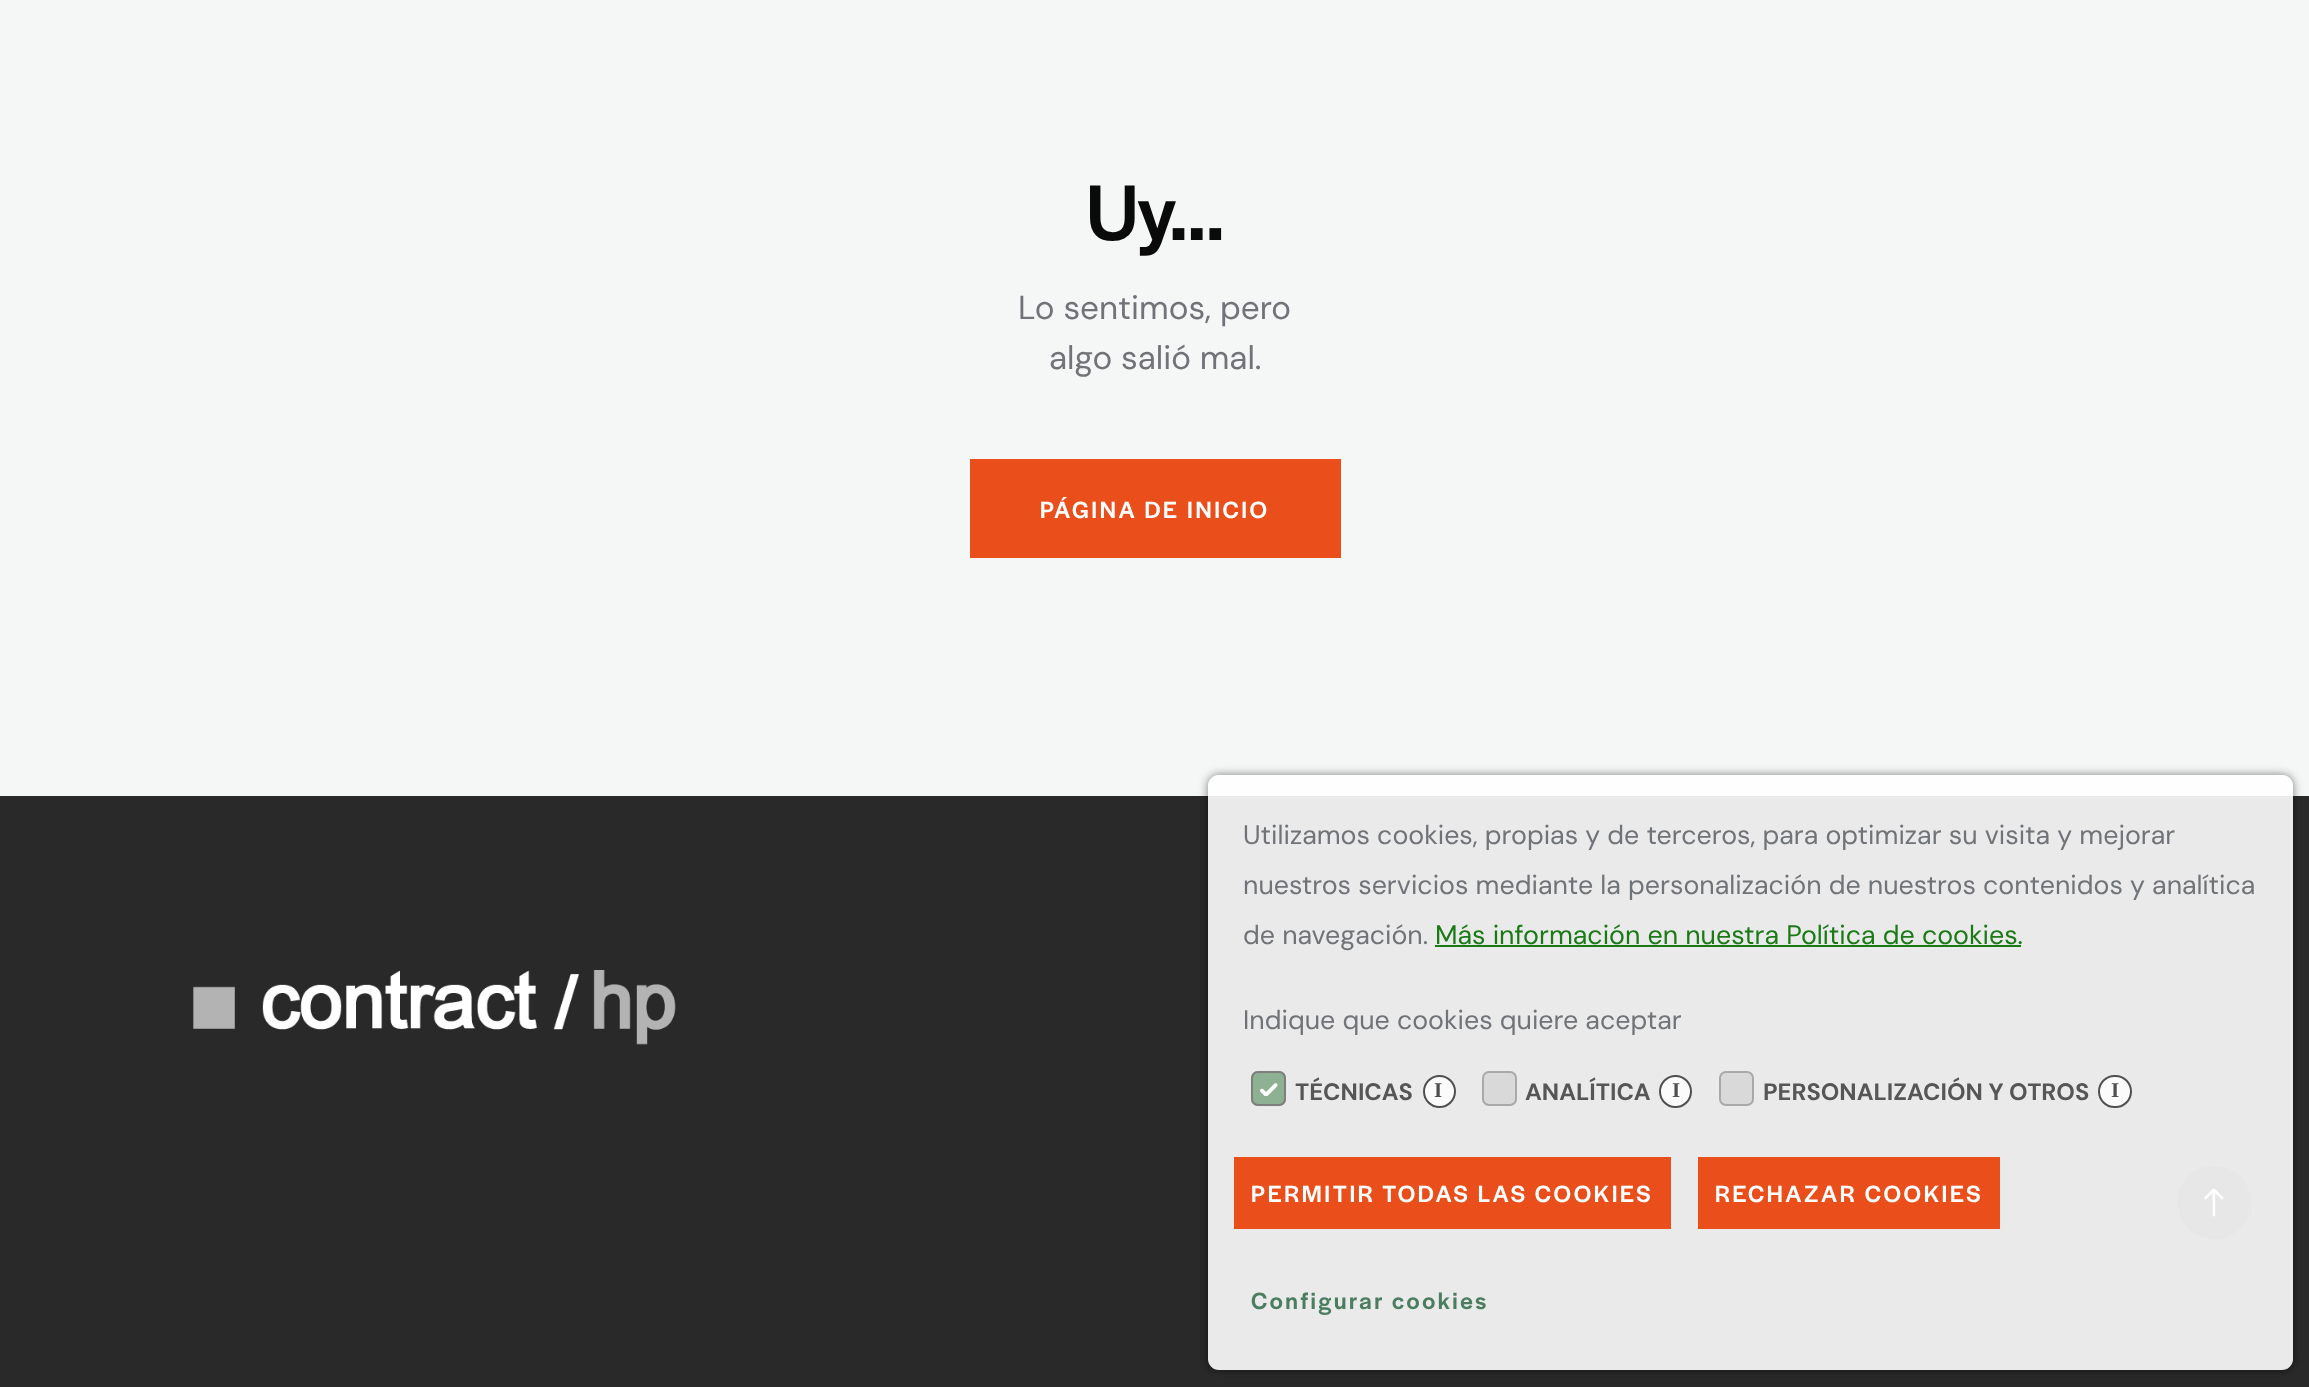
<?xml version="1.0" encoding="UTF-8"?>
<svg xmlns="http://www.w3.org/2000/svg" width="2309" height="1387">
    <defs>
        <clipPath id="clip1"><path d="M 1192 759 H 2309 V 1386 H 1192 Z M 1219 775 H 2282 C 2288 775 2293 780 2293 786 V 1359 C 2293 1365 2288 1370 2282 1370 H 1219 C 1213 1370 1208 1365 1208 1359 V 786 C 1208 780 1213 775 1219 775 Z" clip-rule="evenodd"/></clipPath>
        <filter id="blur1" x="-50%" y="-200%" width="200%" height="500%"><feGaussianBlur stdDeviation="5"/></filter>
    </defs>
    <rect width="100%" height="100%" fill="#F5F6F6"/>
    <text x="1086" y="240" font-family="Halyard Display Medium" font-size="82" font-weight="500" fill="#0A0A0A">Uy...</text>
    <text x="1018" y="319" font-family="DM Sans" font-size="33.25" fill="#707377">Lo sentimos, pero</text>
    <text x="1049" y="369" font-family="DM Sans" font-size="33.25" fill="#707377">algo salió mal.</text>
    <rect x="970" y="459" width="371" height="99" fill="#E94E1B"/>
    <text x="1040" y="518" font-family="Halyard Display Medium" font-size="24.5" font-weight="500" letter-spacing="2.6" fill="#FFFFFF">PÁGINA DE INICIO</text>
    <rect x="0" y="796" width="2309" height="591" fill="#292929"/>
    <image x="193" y="970" width="483" height="75" href="img_01.png"/>
    <rect x="2177" y="1166" width="74" height="73" rx="36.5" fill="#0A0A0A"/>
    <image x="2204" y="1188" width="20" height="29" href="img_03.png"/>
    <g clip-path="url(#clip1)">
        <rect x="1208" y="775" width="1085" height="595" rx="11" fill="#000000" fill-opacity="0.5" filter="url(#blur1)"/>
    </g>
    <rect x="1208" y="775" width="1085" height="595" rx="11" fill="#FFFFFF" fill-opacity="0.9"/>
    <text font-family="DM Sans" font-size="26.8" fill="#707377">
        <tspan x="1243" y="844">Utilizamos cookies, propias y de terceros, para optimizar su visita y mejorar</tspan>
        <tspan x="1243" y="894">nuestros servicios mediante la personalización de nuestros contenidos y analítica</tspan>
        <tspan x="1243" y="944">de navegación.</tspan>
    </text>
    <text x="1435" y="944" font-family="DM Sans" font-size="26.8" fill="#197A16">Más información en nuestra Política de cookies.</text>
    <rect x="1435" y="945" width="586" height="2" fill="#197A16"/>
    <text x="1243" y="1029" font-family="DM Sans" font-size="26.8" fill="#707377">Indique que cookies quiere aceptar</text>
    <rect x="1251" y="1071" width="35" height="35" rx="7" fill="#8DB192"/>
    <image x="1260" y="1083" width="18" height="13" href="img_02.png"/>
    <rect x="1252" y="1072" width="33" height="33" rx="6" fill="none" stroke="#7E7E7E" stroke-width="2"/>
    <text x="1295" y="1100" font-family="DM Sans" font-size="23.75" font-weight="700" fill="#565656">TÉCNICAS</text>
    <circle cx="1439.5" cy="1091.5" r="16.5" fill="#FBFBFB"/>
    <circle cx="1439.5" cy="1091.5" r="15.5" fill="none" stroke="#242424" stroke-opacity="0.8" stroke-width="2"/>
    <text x="1434" y="1097" font-family="Liberation Serif" font-size="21" font-weight="700" fill="#4F4F4F">I</text>
    <rect x="1483" y="1072" width="33" height="33" rx="6" fill="#D9D9D9" stroke="#A9A9A9" stroke-width="2"/>
    <text x="1525" y="1100" font-family="DM Sans" font-size="23.75" font-weight="700" fill="#565656">ANALÍTICA</text>
    <circle cx="1675.5" cy="1091.5" r="16.5" fill="#FBFBFB"/>
    <circle cx="1675.5" cy="1091.5" r="15.5" fill="none" stroke="#242424" stroke-opacity="0.8" stroke-width="2"/>
    <text x="1672" y="1097" font-family="Liberation Serif" font-size="21" font-weight="700" fill="#4F4F4F">I</text>
    <rect x="1720" y="1072" width="33" height="33" rx="6" fill="#D9D9D9" stroke="#A9A9A9" stroke-width="2"/>
    <text x="1763" y="1100" font-family="DM Sans" font-size="23.75" font-weight="700" fill="#565656">PERSONALIZACIÓN Y OTROS</text>
    <rect x="2098" y="1075" width="34" height="33" rx="16.5" fill="#FBFBFB"/>
    <rect x="2099" y="1076" width="32" height="31" rx="15.5" fill="none" stroke="#242424" stroke-opacity="0.8" stroke-width="2"/>
    <text x="2111" y="1097" font-family="Liberation Serif" font-size="21" font-weight="700" fill="#4F4F4F">I</text>
    <rect x="1234" y="1157" width="437" height="72" fill="#E94E1B"/>
    <text x="1251" y="1202" font-family="Halyard Display Medium" font-size="24.5" font-weight="500" letter-spacing="2.6" fill="#FFFFFF">PERMITIR TODAS LAS COOKIES</text>
    <rect x="1698" y="1157" width="302" height="72" fill="#E94E1B"/>
    <text x="1715" y="1202" font-family="Halyard Display Medium" font-size="24.5" font-weight="500" letter-spacing="2.6" fill="#FFFFFF">RECHAZAR COOKIES</text>
    <text x="1251" y="1309" font-family="Halyard Display Medium" font-size="24.5" font-weight="500" letter-spacing="2.6" fill="#4B7D60">Configurar cookies</text>
</svg>
